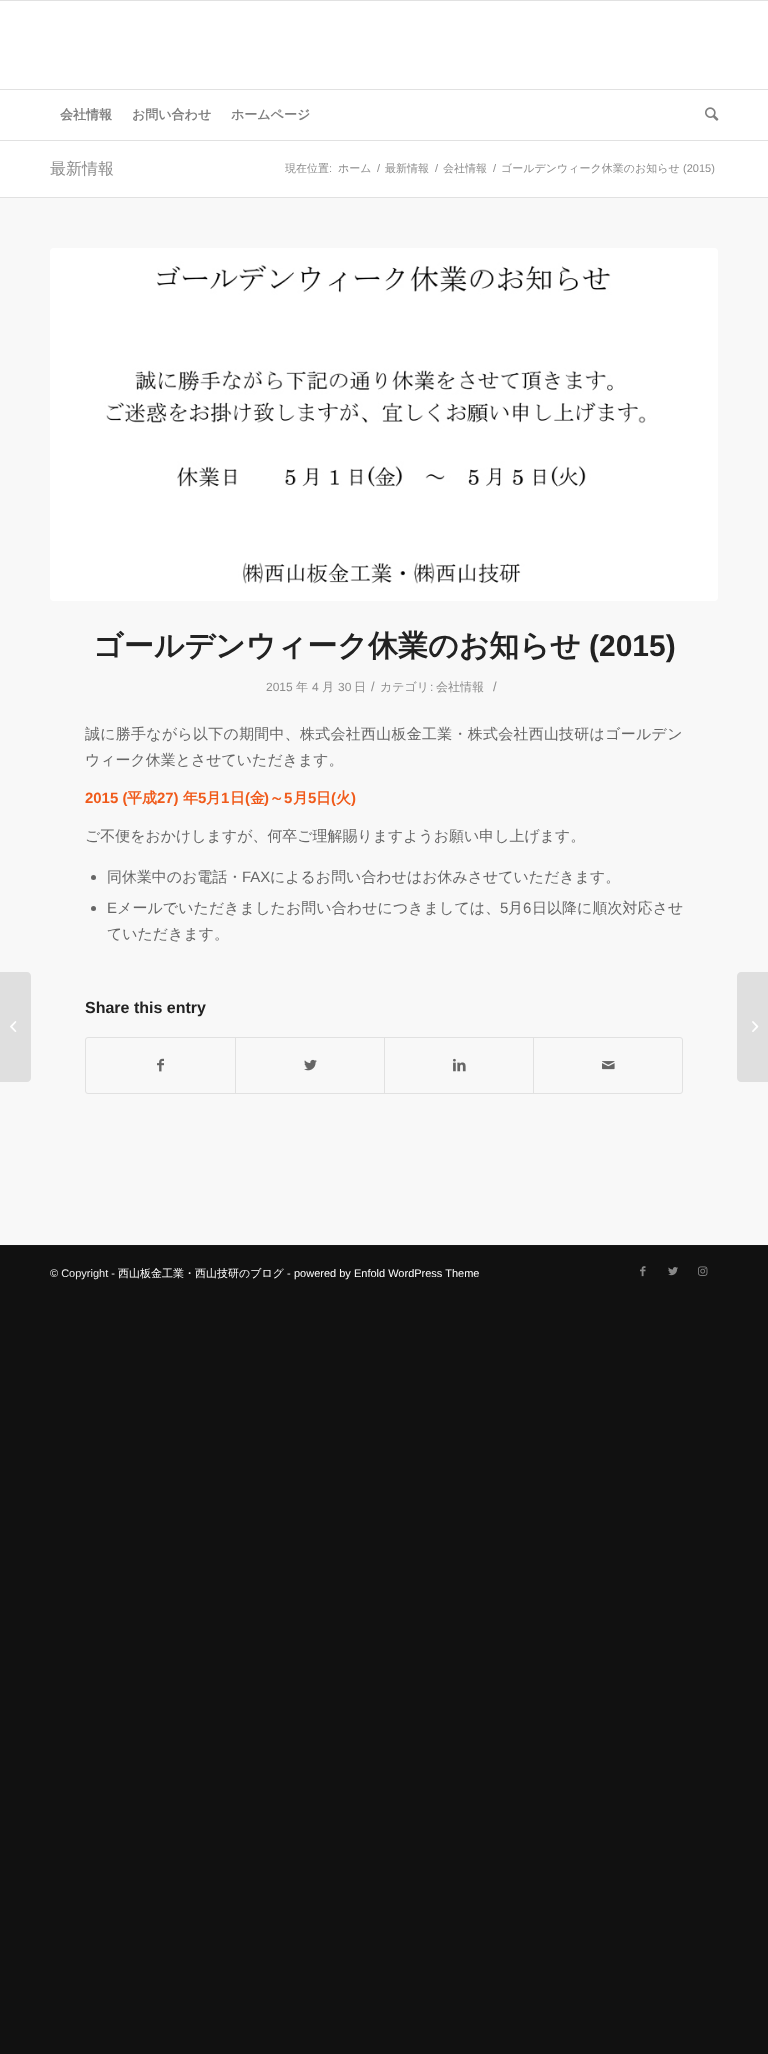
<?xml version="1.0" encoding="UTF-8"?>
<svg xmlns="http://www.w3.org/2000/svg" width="768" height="2054">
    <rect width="100%" height="100%" fill="#111111"/>
    <rect x="0" y="0" width="768" height="1" fill="#E1E1E1"/>
    <rect x="0" y="1" width="768" height="196" fill="#FFFFFF"/>
    <rect x="0" y="140" width="768" height="1" fill="#E1E1E1"/>
    <rect x="0" y="89" width="768" height="1" fill="#E1E1E1"/>
    <text x="60" y="119" font-family="WenQuanYi Zen Hei" font-size="13" font-weight="700" fill="#808080">会社情報</text>
    <text x="132" y="119" font-family="WenQuanYi Zen Hei" font-size="13" font-weight="700" fill="#808080">お問い合わせ</text>
    <text x="231" y="119" font-family="WenQuanYi Zen Hei" font-size="13" font-weight="700" fill="#808080">ホームページ</text>
    <image x="705" y="107" width="14" height="14" href="img_01.png"/>
    <rect x="0" y="198" width="768" height="1047" fill="#F8F8F8"/>
    <path d="M 0 972 H 27 C 29 972 31 974 31 976 V 1078 C 31 1080 29 1082 27 1082 H 0 Z" fill="#DFDFDF"/>
    <image x="10" y="1021" width="7" height="11" href="img_02.png"/>
    <text x="50" y="174" font-family="WenQuanYi Zen Hei" font-size="16" font-weight="500" fill="#8D8D8D">最新情報</text>
    <text x="285" y="172" font-family="WenQuanYi Zen Hei" font-size="11" font-weight="500" fill="#8D8D8D">現在位置</text>
    <text x="329" y="172" font-family="Liberation Sans" font-size="11" fill="#8D8D8D">:</text>
    <text x="338" y="172" font-family="WenQuanYi Zen Hei" font-size="11" font-weight="500" fill="#8D8D8D">ホーム</text>
    <text x="377" y="172" font-family="Liberation Sans" font-size="11" fill="#8D8D8D">/</text>
    <text x="385" y="172" font-family="WenQuanYi Zen Hei" font-size="11" font-weight="500" fill="#8D8D8D">最新情報</text>
    <text x="435" y="172" font-family="Liberation Sans" font-size="11" fill="#8D8D8D">/</text>
    <text x="443" y="172" font-family="WenQuanYi Zen Hei" font-size="11" font-weight="500" fill="#8D8D8D">会社情報</text>
    <text x="493" y="172" font-family="Liberation Sans" font-size="11" fill="#8D8D8D">/</text>
    <text x="501" y="172" font-family="WenQuanYi Zen Hei" font-size="11" font-weight="500" fill="#8D8D8D">ゴールデンウィーク休業のお知らせ</text>
    <text x="683" y="172" font-family="Liberation Sans" font-size="11" fill="#8D8D8D">(2015)</text>
    <rect x="0" y="197" width="768" height="1" fill="#E1E1E1"/>
    <image x="50" y="248" width="668" height="353" href="img_03.png"/>
    <text x="93" y="656" font-family="WenQuanYi Zen Hei" font-size="30" font-weight="700" fill="#222222">ゴールデンウィーク休業のお知らせ</text>
    <text x="589" y="656" font-family="Liberation Sans" font-size="30" font-weight="700" fill="#222222">(2015)</text>
    <text x="266" y="691" font-family="Liberation Sans" font-size="12" fill="#8D8D8D">2015</text>
    <text x="296" y="691" font-family="WenQuanYi Zen Hei" font-size="12" font-weight="500" fill="#8D8D8D">年</text>
    <text x="312" y="691" font-family="Liberation Sans" font-size="12" fill="#8D8D8D">4</text>
    <text x="322" y="691" font-family="WenQuanYi Zen Hei" font-size="12" font-weight="500" fill="#8D8D8D">月</text>
    <text x="338" y="691" font-family="Liberation Sans" font-size="12" fill="#8D8D8D">30</text>
    <text x="354" y="691" font-family="WenQuanYi Zen Hei" font-size="12" font-weight="500" fill="#8D8D8D">日</text>
    <text x="371" y="691" font-family="Liberation Sans" font-size="13" fill="#8D8D8D">/</text>
    <text x="380" y="691" font-family="WenQuanYi Zen Hei" font-size="12" font-weight="500" fill="#8D8D8D">カテゴリ</text>
    <text x="430" y="691" font-family="Liberation Sans" font-size="12" fill="#8D8D8D">:</text>
    <text x="436" y="691" font-family="WenQuanYi Zen Hei" font-size="12" font-weight="500" fill="#8D8D8D">会社情報</text>
    <text x="493" y="691" font-family="Liberation Sans" font-size="13" fill="#8D8D8D">/</text>
    <text x="85" y="739" font-family="WenQuanYi Zen Hei" font-size="14.95" font-weight="500" letter-spacing="0.3" fill="#666666">誠に勝手ながら以下の期間中、株式会社西山板金工業・株式会社西山技研はゴールデン</text>
    <text x="85" y="765" font-family="WenQuanYi Zen Hei" font-size="14.95" font-weight="500" fill="#666666">ウィーク休業とさせていただきます。</text>
    <text x="85" y="803" font-family="Liberation Sans" font-size="14.95" font-weight="700" fill="#F05A1A">2015 (</text>
    <text x="127" y="803" font-family="WenQuanYi Zen Hei" font-size="14.95" font-weight="700" fill="#F05A1A">平成</text>
    <text x="157" y="803" font-family="Liberation Sans" font-size="14.95" font-weight="700" fill="#F05A1A">27)</text>
    <text x="183" y="803" font-family="WenQuanYi Zen Hei" font-size="14.95" font-weight="700" fill="#F05A1A">年</text>
    <text x="198" y="803" font-family="Liberation Sans" font-size="14.95" font-weight="700" fill="#F05A1A">5</text>
    <text x="206" y="803" font-family="WenQuanYi Zen Hei" font-size="14.95" font-weight="700" fill="#F05A1A">月</text>
    <text x="221" y="803" font-family="Liberation Sans" font-size="14.95" font-weight="700" fill="#F05A1A">1</text>
    <text x="230" y="803" font-family="WenQuanYi Zen Hei" font-size="14.95" font-weight="700" fill="#F05A1A">日</text>
    <text x="245" y="803" font-family="Liberation Sans" font-size="14.95" font-weight="700" fill="#F05A1A">(</text>
    <text x="250" y="803" font-family="WenQuanYi Zen Hei" font-size="14.95" font-weight="700" fill="#F05A1A">金</text>
    <text x="264" y="803" font-family="Liberation Sans" font-size="14.95" font-weight="700" fill="#F05A1A">)</text>
    <text x="269" y="803" font-family="WenQuanYi Zen Hei" font-size="14.95" font-weight="700" fill="#F05A1A">～</text>
    <text x="284" y="803" font-family="Liberation Sans" font-size="14.95" font-weight="700" fill="#F05A1A">5</text>
    <text x="293" y="803" font-family="WenQuanYi Zen Hei" font-size="14.95" font-weight="700" fill="#F05A1A">月</text>
    <text x="308" y="803" font-family="Liberation Sans" font-size="14.95" font-weight="700" fill="#F05A1A">5</text>
    <text x="316" y="803" font-family="WenQuanYi Zen Hei" font-size="14.95" font-weight="700" fill="#F05A1A">日</text>
    <text x="331" y="803" font-family="Liberation Sans" font-size="14.95" font-weight="700" fill="#F05A1A">(</text>
    <text x="336" y="803" font-family="WenQuanYi Zen Hei" font-size="14.95" font-weight="700" fill="#F05A1A">火</text>
    <text x="351" y="803" font-family="Liberation Sans" font-size="14.95" font-weight="700" fill="#F05A1A">)</text>
    <text x="85" y="841" font-family="WenQuanYi Zen Hei" font-size="14.95" font-weight="500" fill="#666666">ご不便をおかけしますが、何卒ご理解賜りますようお願い申し上げます。</text>
    <circle cx="93.5" cy="877.5" r="2.5" fill="#666666"/>
    <text x="107" y="882" font-family="WenQuanYi Zen Hei" font-size="14.95" font-weight="500" fill="#666666">同休業中のお電話・</text>
    <text x="242" y="882" font-family="Liberation Sans" font-size="14.95" fill="#666666">FAX</text>
    <text x="270" y="882" font-family="WenQuanYi Zen Hei" font-size="14.95" font-weight="500" fill="#666666">によるお問い合わせはお休みさせていただきます。</text>
    <circle cx="93.5" cy="908.5" r="2.5" fill="#666666"/>
    <text x="107" y="913" font-family="Liberation Sans" font-size="14.95" letter-spacing="0.1" fill="#666666">E</text>
    <text x="117" y="913" font-family="WenQuanYi Zen Hei" font-size="14.95" font-weight="500" letter-spacing="0.1" fill="#666666">メールでいただきましたお問い合わせにつきましては、</text>
    <text x="500" y="913" font-family="Liberation Sans" font-size="14.95" letter-spacing="0.1" fill="#666666">5</text>
    <text x="508" y="913" font-family="WenQuanYi Zen Hei" font-size="14.95" font-weight="500" letter-spacing="0.1" fill="#666666">月</text>
    <text x="523" y="913" font-family="Liberation Sans" font-size="14.95" letter-spacing="0.1" fill="#666666">6</text>
    <text x="532" y="913" font-family="WenQuanYi Zen Hei" font-size="14.95" font-weight="500" letter-spacing="0.1" fill="#666666">日以降に順次対応させ</text>
    <text x="107" y="939" font-family="WenQuanYi Zen Hei" font-size="14.95" font-weight="500" fill="#666666">ていただきます。</text>
    <text x="85" y="1013" font-family="Liberation Sans" font-size="16" font-weight="700" fill="#222222">Share this entry</text>
    <rect x="85.5" y="1037.5" width="597" height="56" rx="2.5" fill="none" stroke="#E1E1E1"/>
    <image x="157" y="1058" width="7" height="14" href="img_04.png"/>
    <rect x="235" y="1038" width="1" height="55" fill="#E1E1E1"/>
    <image x="304" y="1059" width="13" height="12" href="img_05.png"/>
    <rect x="384" y="1038" width="1" height="55" fill="#E1E1E1"/>
    <image x="453" y="1058" width="13" height="14" href="img_06.png"/>
    <rect x="533" y="1038" width="1" height="55" fill="#E1E1E1"/>
    <image x="602" y="1061" width="13" height="9" href="img_07.png"/>
    <rect x="0" y="1245" width="768" height="1" fill="#161616"/>
    <text x="50" y="1277" font-family="Liberation Sans" font-size="11" fill="#EEEEEE">© Copyright -</text>
    <text x="118" y="1277" font-family="WenQuanYi Zen Hei" font-size="11" font-weight="500" fill="#FFFFFF">西山板金工業・西山技研のブログ</text>
    <text x="287" y="1277" font-family="Liberation Sans" font-size="11" fill="#EEEEEE">-</text>
    <text x="294" y="1277" font-family="Liberation Sans" font-size="11" fill="#FFFFFF">powered by Enfold WordPress Theme</text>
    <image x="640" y="1266" width="6" height="11" href="img_08.png"/>
    <image x="668" y="1267" width="10" height="9" href="img_09.png"/>
    <image x="698" y="1266" width="10" height="10" href="img_10.png"/>
    <path d="M 741 972 H 768 V 1082 H 741 C 739 1082 737 1080 737 1078 V 976 C 737 974 739 972 741 972 Z" fill="#DFDFDF"/>
    <image x="752" y="1021" width="7" height="11" href="img_11.png"/>
</svg>
